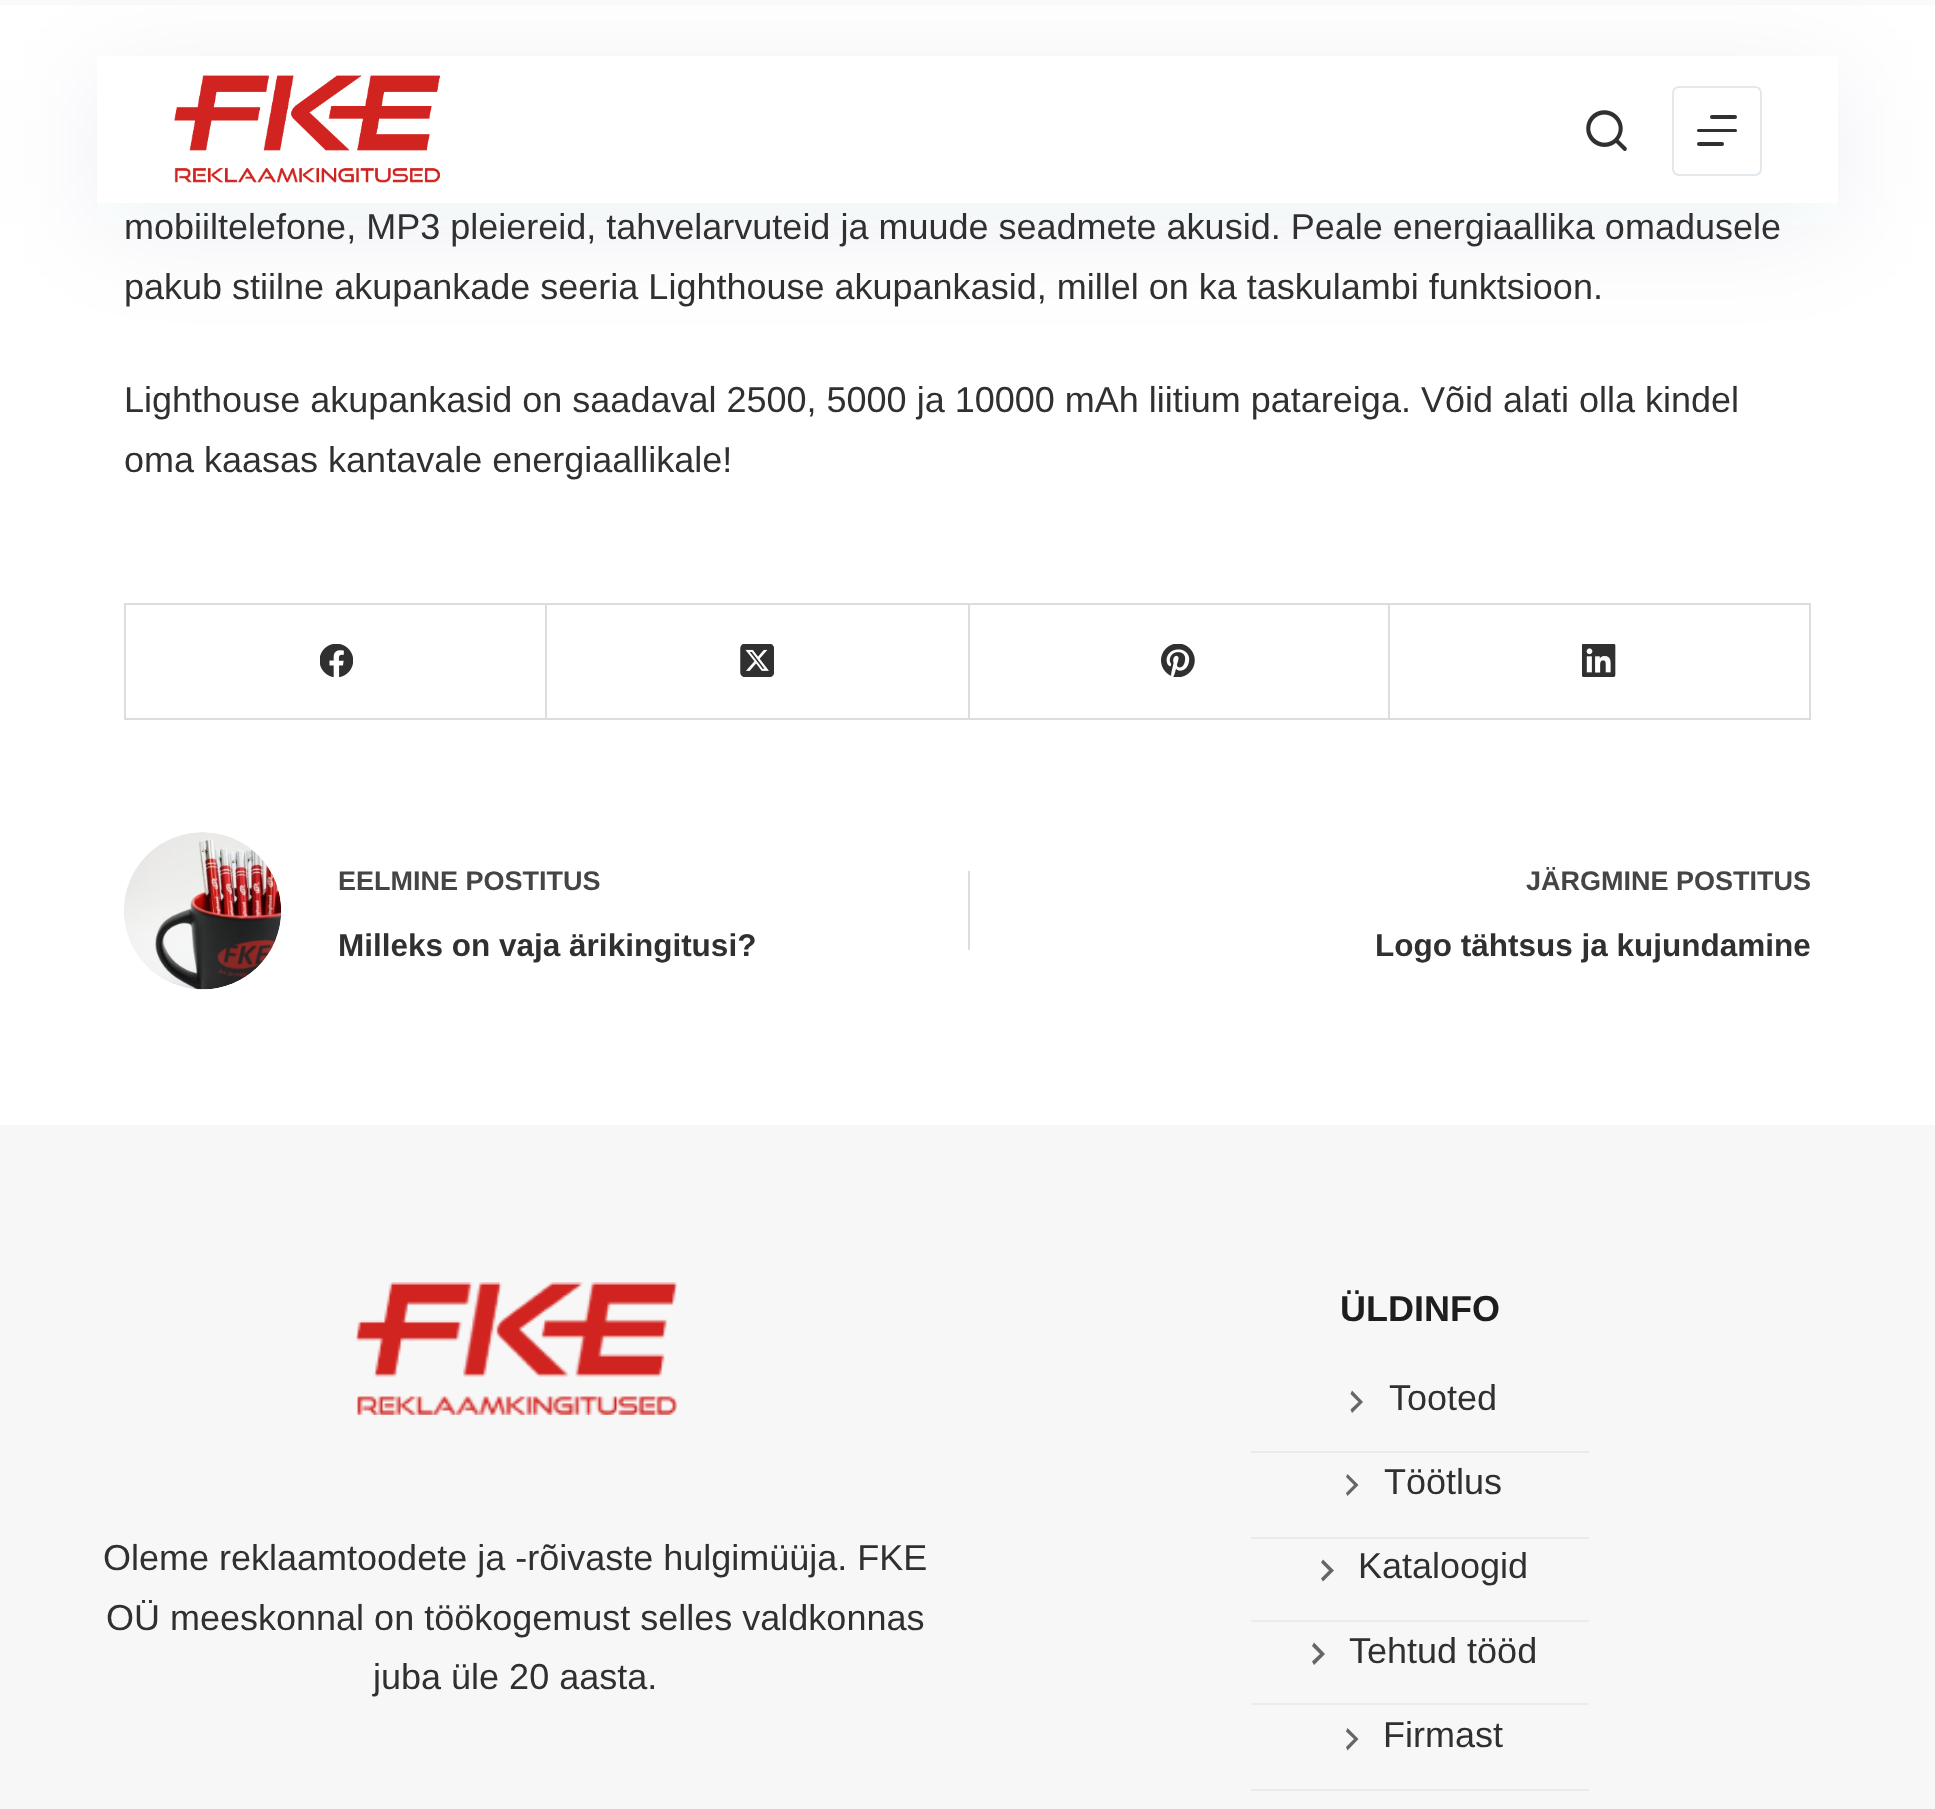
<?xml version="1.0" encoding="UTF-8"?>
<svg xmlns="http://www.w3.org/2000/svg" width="1935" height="1809">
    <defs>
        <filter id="blur1" x="-50%" y="-200%" width="200%" height="500%"><feGaussianBlur stdDeviation="56"/></filter>
    </defs>
    <rect width="100%" height="100%" fill="#FFFFFF"/>
    <rect x="0" y="0" width="1935" height="5" fill="#F9FAFB"/>
    <rect x="97" y="79" width="1741" height="146" fill="#2C3E50" fill-opacity="0.07" filter="url(#blur1)"/>
    <rect x="97" y="56" width="1741" height="147" fill="#FFFFFF"/>
    <image x="174" y="75" width="267" height="108" href="img_01.png"/>
    <image x="1586" y="110" width="41" height="41" href="img_02.png"/>
    <rect x="1673" y="87" width="88" height="88" rx="6" fill="none" stroke="#E3E8ED" stroke-width="2"/>
    <rect x="1710" y="115" width="27" height="4" rx="2" fill="#303030"/>
    <rect x="1697" y="129" width="40" height="3" rx="1.5" fill="#303030"/>
    <rect x="1697" y="142" width="27" height="4" rx="2" fill="#303030"/>
    <text font-family="Liberation Sans" font-size="36" fill="#303030">
        <tspan x="124" y="239">mobiiltelefone, MP3 pleiereid, tahvelarvuteid ja muude seadmete akusid. Peale energiaallika omadusele</tspan>
        <tspan x="124" y="299">pakub stiilne akupankade seeria Lighthouse akupankasid, millel on ka taskulambi funktsioon.</tspan>
    </text>
    <text font-family="Liberation Sans" font-size="36" fill="#303030">
        <tspan x="124" y="412">Lighthouse akupankasid on saadaval 2500, 5000 ja 10000 mAh liitium patareiga. Võid alati olla kindel</tspan>
        <tspan x="124" y="472">oma kaasas kantavale energiaallikale!</tspan>
    </text>
    <rect x="124" y="603" width="1687" height="2" fill="#DDDDDD"/>
    <rect x="124" y="603" width="2" height="117" fill="#DDDDDD"/>
    <rect x="545" y="605" width="2" height="115" fill="#DDDDDD"/>
    <rect x="126" y="718" width="421" height="2" fill="#DDDDDD"/>
    <image x="320" y="644" width="33" height="33" href="img_03.png"/>
    <rect x="968" y="605" width="2" height="115" fill="#DDDDDD"/>
    <rect x="547" y="718" width="423" height="2" fill="#DDDDDD"/>
    <image x="740" y="644" width="34" height="33" href="img_04.png"/>
    <rect x="1388" y="605" width="2" height="115" fill="#DDDDDD"/>
    <rect x="970" y="718" width="421" height="2" fill="#DDDDDD"/>
    <image x="1161" y="644" width="34" height="33" href="img_05.png"/>
    <rect x="1809" y="605" width="2" height="115" fill="#DDDDDD"/>
    <rect x="1391" y="718" width="420" height="2" fill="#DDDDDD"/>
    <image x="1582" y="644" width="34" height="33" href="img_06.png"/>
    <image x="124" y="832" width="157" height="158" href="img_07.png"/>
    <text x="338" y="890" font-family="Liberation Sans" font-size="27" font-weight="700" fill="#454545">EELMINE POSTITUS</text>
    <text x="338" y="956" font-family="Liberation Sans" font-size="31.5" font-weight="700" fill="#303030">Milleks on vaja ärikingitusi?</text>
    <rect x="968" y="871" width="2" height="79" fill="#DDDDDD"/>
    <text x="1526" y="890" font-family="Liberation Sans" font-size="27" font-weight="700" fill="#454545">JÄRGMINE POSTITUS</text>
    <text x="1375" y="956" font-family="Liberation Sans" font-size="31.5" font-weight="700" fill="#303030">Logo tähtsus ja kujundamine</text>
    <rect x="0" y="1125" width="1935" height="684" fill="#F7F7F7"/>
    <image x="356" y="1282" width="321" height="133" href="img_08.png"/>
    <text x="103" y="1570" font-family="Liberation Sans" font-size="36" fill="#303030">Oleme reklaamtoodete ja -rõivaste hulgimüüja. FKE</text>
    <text x="106" y="1630" font-family="Liberation Sans" font-size="36" fill="#303030">OÜ meeskonnal on töökogemust selles valdkonnas</text>
    <text x="373" y="1689" font-family="Liberation Sans" font-size="36" fill="#303030">juba üle 20 aasta.</text>
    <text x="1340" y="1321" font-family="Liberation Sans" font-size="36" font-weight="700" fill="#1E1E1E">ÜLDINFO</text>
    <rect x="1251" y="1451" width="338" height="2" fill="#EBEBEB"/>
    <text x="1389" y="1410" font-family="Liberation Sans" font-size="36" fill="#303030">Tooted</text>
    <path d="M 1350.5 1409.5 L 1358.5 1402 L 1350.5 1394 L 1352 1390.5 L 1363 1402 L 1352 1413 Z" fill="#666666"/>
    <rect x="1251" y="1537" width="338" height="2" fill="#EBEBEB"/>
    <text x="1384" y="1494" font-family="Liberation Sans" font-size="36" fill="#303030">Töötlus</text>
    <path d="M 1346 1493 L 1354 1485 L 1346 1477 L 1347.5 1474 L 1358.5 1485 L 1347.5 1496 Z" fill="#666666"/>
    <rect x="1251" y="1620" width="338" height="2" fill="#EBEBEB"/>
    <text x="1358" y="1578" font-family="Liberation Sans" font-size="36" fill="#303030">Kataloogid</text>
    <path d="M 1321 1578.5 L 1329 1570.5 L 1321 1562.5 L 1323 1559.5 L 1334 1570.5 L 1323 1581.5 Z" fill="#666666"/>
    <rect x="1251" y="1703" width="338" height="2" fill="#EBEBEB"/>
    <text x="1349" y="1663" font-family="Liberation Sans" font-size="36" fill="#303030">Tehtud tööd</text>
    <path d="M 1312 1661.5 L 1320 1654 L 1312 1646 L 1314 1642.5 L 1325 1654 L 1314 1665 Z" fill="#666666"/>
    <rect x="1251" y="1789" width="338" height="2" fill="#EBEBEB"/>
    <text x="1383" y="1747" font-family="Liberation Sans" font-size="36" fill="#303030">Firmast</text>
    <path d="M 1346 1747 L 1354 1739 L 1346 1731.5 L 1347.5 1728 L 1358.5 1739 L 1347.5 1750.5 Z" fill="#666666"/>
</svg>
